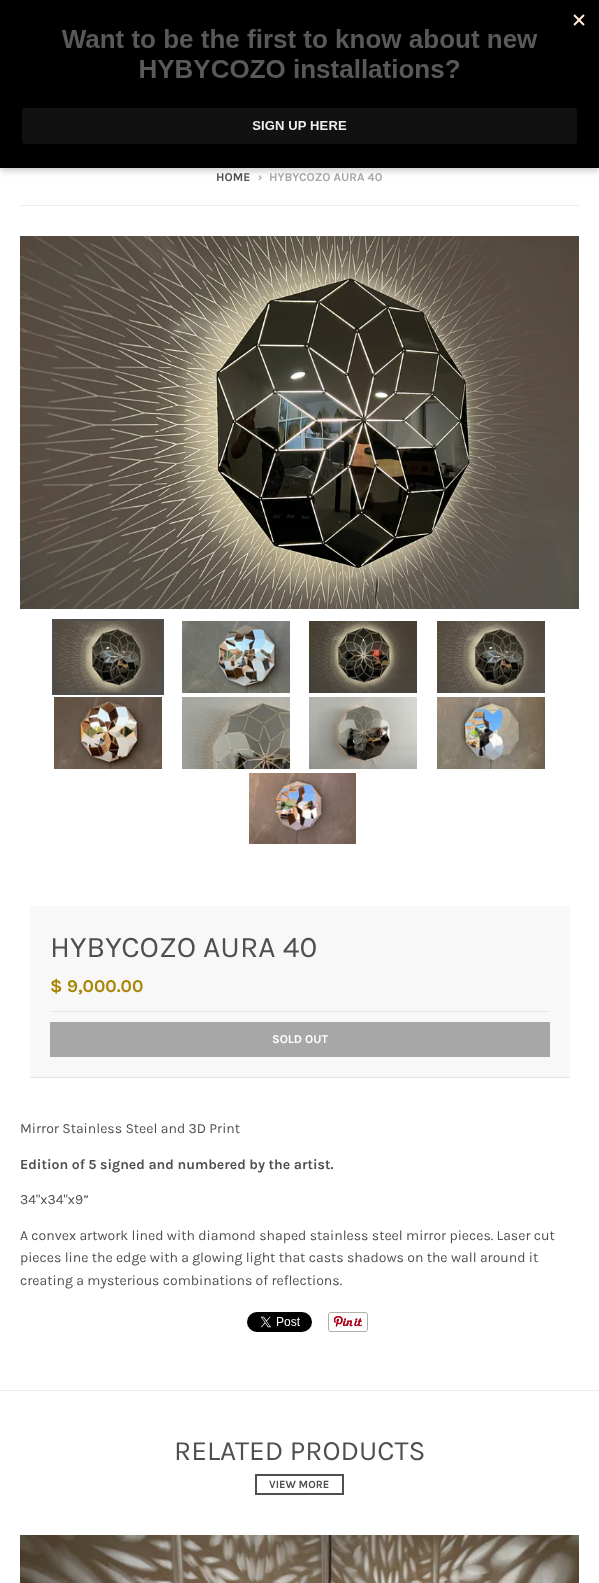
<?xml version="1.0" encoding="UTF-8"?>
<svg xmlns="http://www.w3.org/2000/svg" width="599" height="1583">
    <defs>
        <filter id="blur1" x="-50%" y="-200%" width="200%" height="500%"><feGaussianBlur stdDeviation="3"/></filter>
    </defs>
    <rect width="100%" height="100%" fill="#FFFFFF"/>
    <rect x="0" y="3" width="599" height="168" fill="#000000" fill-opacity="0.2" filter="url(#blur1)"/>
    <image x="0" y="0" width="599" height="168" href="img_01.png"/>
    <rect x="0" y="1390" width="599" height="1" fill="#EDEDED"/>
    <text x="216" y="181" font-family="Karla" font-size="12" font-weight="700" fill="#4F4F4F">HOME</text>
    <text x="258" y="181" font-family="Karla" font-size="12" font-weight="700" fill="#A7A7A7">›</text>
    <text x="269" y="181" font-family="Karla" font-size="12" font-weight="700" fill="#A7A7A7">HYBYCOZO AURA 40</text>
    <rect x="20" y="205" width="559" height="1" fill="#EDEDED"/>
    <image x="20" y="236" width="559" height="373" href="img_02.png"/>
    <rect x="53" y="620" width="110" height="74" fill="none" stroke="#4F4F4F" stroke-width="2"/>
    <image x="54" y="621" width="108" height="72" href="img_03.png"/>
    <image x="182" y="621" width="108" height="72" href="img_04.png"/>
    <image x="309" y="621" width="108" height="72" href="img_05.png"/>
    <image x="437" y="621" width="108" height="72" href="img_06.png"/>
    <image x="54" y="697" width="108" height="72" href="img_07.png"/>
    <image x="182" y="697" width="108" height="72" href="img_08.png"/>
    <image x="309" y="697" width="108" height="72" href="img_09.png"/>
    <image x="437" y="697" width="108" height="72" href="img_10.png"/>
    <image x="249" y="773" width="107" height="71" href="img_11.png"/>
    <rect x="30" y="906" width="540" height="171" fill="#F8F8F8"/>
    <rect x="30" y="1077" width="540" height="1" fill="#E7E6E6"/>
    <text x="50" y="957" font-family="Karla" font-size="30" fill="#4F4F4F">HYBYCOZO AURA 40</text>
    <rect x="50" y="1011" width="500" height="1" fill="#E7E6E6"/>
    <text x="50" y="992" font-family="Karla" font-size="18" font-weight="700" fill="#A98606">$ 9,000.00</text>
    <rect x="50" y="1022" width="500" height="35" fill="#A7A7A7"/>
    <text x="272" y="1043" font-family="Karla" font-size="12" font-weight="700" fill="#FFFFFF">SOLD OUT</text>
    <text x="20" y="1133" font-family="Karla" font-size="14" fill="#4F4F4F">Mirror Stainless Steel and 3D Print</text>
    <text x="20" y="1169" font-family="Karla" font-size="14" font-weight="700" fill="#4F4F4F">Edition of 5 signed and numbered by the artist.</text>
    <text x="20" y="1204" font-family="Karla" font-size="14" fill="#4F4F4F">34"x34"x9”</text>
    <text font-family="Karla" font-size="14" fill="#4F4F4F">
        <tspan x="20" y="1240">A convex artwork lined with diamond shaped stainless steel mirror pieces. Laser cut</tspan>
        <tspan x="20" y="1262">pieces line the edge with a glowing light that casts shadows on the wall around it</tspan>
        <tspan x="20" y="1285">creating a mysterious combinations of reflections.</tspan>
    </text>
    <image x="247" y="1312" width="65" height="20" href="img_12.png"/>
    <image x="328" y="1312" width="40" height="20" href="img_13.png"/>
    <text x="174" y="1460" font-family="Karla" font-size="28" fill="#4F4F4F">RELATED PRODUCTS</text>
    <rect x="256" y="1475" width="87" height="19" fill="none" stroke="#4F4F4F" stroke-width="2"/>
    <text x="269" y="1488" font-family="Karla" font-size="11" font-weight="700" fill="#4F4F4F">VIEW MORE</text>
    <image x="20" y="1535" width="559" height="48" href="img_14.png"/>
</svg>
